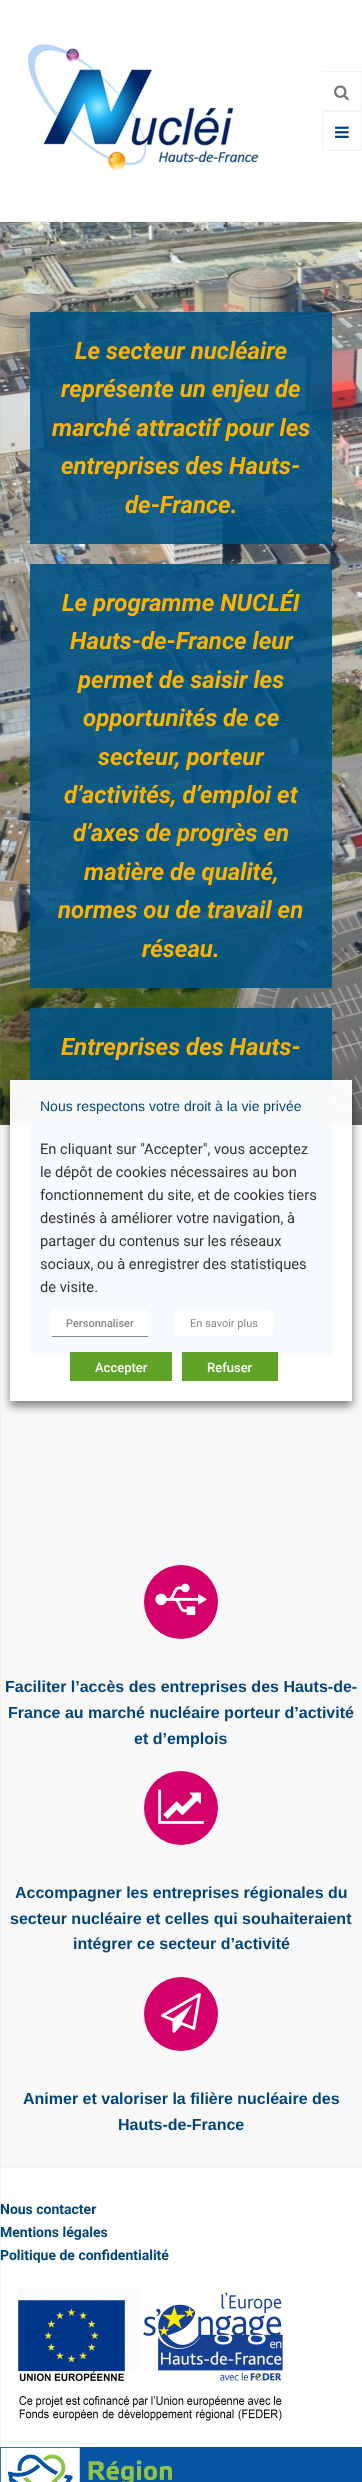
<?xml version="1.0" encoding="UTF-8"?>
<svg xmlns="http://www.w3.org/2000/svg" width="362" height="2482">
    <defs>
        <filter id="blur1" x="-50%" y="-200%" width="200%" height="500%"><feGaussianBlur stdDeviation="0.5"/></filter>
        <clipPath id="clip1"><path d="M 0 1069 H 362 V 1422 H 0 Z M 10 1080 H 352 V 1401 H 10 Z" clip-rule="evenodd"/></clipPath>
        <filter id="blur2" x="-50%" y="-200%" width="200%" height="500%"><feGaussianBlur stdDeviation="5"/></filter>
    </defs>
    <rect width="100%" height="100%" fill="#F8F8F8"/>
    <image x="0" y="222" width="362" height="903" href="img_04.png"/>
    <rect x="0" y="2168" width="362" height="314" fill="#FFFFFF"/>
    <rect x="0" y="2167" width="362" height="1" fill="#F2F2F2"/>
    <image x="0" y="2447" width="362" height="35" href="img_09.png"/>
    <rect x="-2" y="0" width="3" height="2482" fill="#999999" fill-opacity="0.1" filter="url(#blur1)"/>
    <rect x="0" y="0" width="362" height="221" fill="#FFFFFF"/>
    <rect x="0" y="221" width="362" height="1" fill="#F2F2F2"/>
    <image x="27" y="44" width="232" height="127" href="img_01.png"/>
    <rect x="322" y="71" width="40" height="1" fill="#F6F3F3"/>
    <rect x="361" y="71" width="1" height="40" fill="#F6F3F3"/>
    <rect x="322" y="110" width="40" height="1" fill="#F6F3F3"/>
    <image x="334" y="85" width="15" height="16" href="img_02.png"/>
    <rect x="322.5" y="111.5" width="39" height="39" fill="none" stroke="#F6F3F3"/>
    <image x="335" y="126" width="14" height="12" href="img_03.png"/>
    <rect x="30" y="312" width="302" height="232" fill="#005384" fill-opacity="0.9"/>
    <text x="75" y="359" font-family="Roboto" font-size="24" font-weight="700" font-style="italic" fill="#FFB200">Le secteur nucléaire</text>
    <text x="61" y="397" font-family="Roboto" font-size="24" font-weight="700" font-style="italic" fill="#FFB200">représente un enjeu de</text>
    <text x="52" y="436" font-family="Roboto" font-size="24" font-weight="700" font-style="italic" fill="#FFB200">marché attractif pour les</text>
    <text x="61" y="474" font-family="Roboto" font-size="24" font-weight="700" font-style="italic" fill="#FFB200">entreprises des Hauts-</text>
    <text x="125" y="513" font-family="Roboto" font-size="24" font-weight="700" font-style="italic" fill="#FFB200">de-France.</text>
    <rect x="30" y="564" width="302" height="424" fill="#005384" fill-opacity="0.9"/>
    <text x="62" y="611" font-family="Roboto" font-size="24" font-weight="700" font-style="italic" fill="#FFB200">Le programme NUCLÉI</text>
    <text x="70" y="649" font-family="Roboto" font-size="24" font-weight="700" font-style="italic" fill="#FFB200">Hauts-de-France leur</text>
    <text x="78" y="688" font-family="Roboto" font-size="24" font-weight="700" font-style="italic" fill="#FFB200">permet de saisir les</text>
    <text x="83" y="726" font-family="Roboto" font-size="24" font-weight="700" font-style="italic" fill="#FFB200">opportunités de ce</text>
    <text x="98" y="765" font-family="Roboto" font-size="24" font-weight="700" font-style="italic" fill="#FFB200">secteur, porteur</text>
    <text x="64" y="803" font-family="Roboto" font-size="24" font-weight="700" font-style="italic" fill="#FFB200">d’activités, d’emploi et</text>
    <text x="73" y="841" font-family="Roboto" font-size="24" font-weight="700" font-style="italic" fill="#FFB200">d’axes de progrès en</text>
    <text x="84" y="880" font-family="Roboto" font-size="24" font-weight="700" font-style="italic" fill="#FFB200">matière de qualité,</text>
    <text x="58" y="918" font-family="Roboto" font-size="24" font-weight="700" font-style="italic" fill="#FFB200">normes ou de travail en</text>
    <text x="142" y="957" font-family="Roboto" font-size="24" font-weight="700" font-style="italic" fill="#FFB200">réseau.</text>
    <rect x="30" y="1008" width="302" height="347" fill="#005384" fill-opacity="0.9"/>
    <text x="61" y="1055" font-family="Roboto" font-size="24" font-weight="700" font-style="italic" fill="#FFB200">Entreprises des Hauts-</text>
    <circle cx="181" cy="1602" r="37" fill="#D30069"/>
    <image x="155" y="1583" width="52" height="33" href="img_05.png"/>
    <text x="5" y="1692" font-family="Liberation Sans" font-size="16" font-weight="700" fill="#00447A">Faciliter l’accès des entreprises des Hauts-de-</text>
    <text x="8" y="1718" font-family="Liberation Sans" font-size="16" font-weight="700" fill="#00447A">France au marché nucléaire porteur d’activité</text>
    <text x="134" y="1744" font-family="Liberation Sans" font-size="16" font-weight="700" fill="#00447A">et d’emplois</text>
    <circle cx="181" cy="1808" r="37" fill="#D30069"/>
    <image x="158" y="1789" width="46" height="35" href="img_06.png"/>
    <text x="15" y="1898" font-family="Liberation Sans" font-size="16" font-weight="700" fill="#00447A">Accompagner les entreprises régionales du</text>
    <text x="10" y="1924" font-family="Liberation Sans" font-size="16" font-weight="700" fill="#00447A">secteur nucléaire et celles qui souhaiteraient</text>
    <text x="73" y="1949" font-family="Liberation Sans" font-size="16" font-weight="700" fill="#00447A">intégrer ce secteur d’activité</text>
    <circle cx="181" cy="2014" r="37" fill="#D30069"/>
    <image x="161" y="1992" width="40" height="41" href="img_07.png"/>
    <text x="23" y="2104" font-family="Liberation Sans" font-size="16" font-weight="700" fill="#00447A">Animer et valoriser la filière nucléaire des</text>
    <text x="118" y="2130" font-family="Liberation Sans" font-size="16" font-weight="700" fill="#00447A">Hauts-de-France</text>
    <text font-family="Roboto" font-size="14" font-weight="700" fill="#00447A">
        <tspan x="0" y="2214">Nous contacter</tspan>
        <tspan x="0" y="2237">Mentions légales</tspan>
        <tspan x="0" y="2260">Politique de confidentialité</tspan>
    </text>
    <image x="17" y="2288" width="266" height="133" href="img_08.png"/>
    <g clip-path="url(#clip1)">
        <rect x="10" y="1085" width="342" height="321" fill="#000000" fill-opacity="0.5" filter="url(#blur2)"/>
    </g>
    <rect x="10" y="1080" width="342" height="321" fill="#FFFFFF" fill-opacity="0.97"/>
    <text x="40" y="1111" font-family="Liberation Sans" font-size="14" fill="#00447A">Nous respectons votre droit à la vie privée</text>
    <text font-family="Roboto" font-size="14.7" fill="#333333">
        <tspan x="40" y="1154">En cliquant sur "Accepter", vous acceptez</tspan>
        <tspan x="40" y="1177">le dépôt de cookies nécessaires au bon</tspan>
        <tspan x="40" y="1200">fonctionnement du site, et de cookies tiers</tspan>
        <tspan x="40" y="1223">destinés à améliorer votre navigation, à</tspan>
        <tspan x="40" y="1246">partager du contenus sur les réseaux</tspan>
        <tspan x="40" y="1269">sociaux, ou à enregistrer des statistiques</tspan>
        <tspan x="40" y="1292">de visite.</tspan>
    </text>
    <rect x="50" y="1309" width="100" height="28" rx="4" fill="#FFFFFF"/>
    <rect x="52" y="1336" width="96" height="1" fill="#898888"/>
    <text x="66" y="1327" font-family="Roboto" font-size="11" font-weight="500" fill="#898888">Personnaliser</text>
    <rect x="174" y="1309" width="99" height="27" rx="4" fill="#FFFFFF"/>
    <text x="190" y="1327" font-family="Roboto" font-size="11" fill="#898888">En savoir plus</text>
    <rect x="70" y="1352" width="102" height="29" fill="#61A229"/>
    <text x="95" y="1372" font-family="Roboto" font-size="13" font-weight="500" fill="#FFFFFF">Accepter</text>
    <rect x="182" y="1352" width="96" height="29" fill="#61A229"/>
    <text x="207" y="1372" font-family="Roboto" font-size="13" font-weight="500" fill="#FFFFFF">Refuser</text>
</svg>
